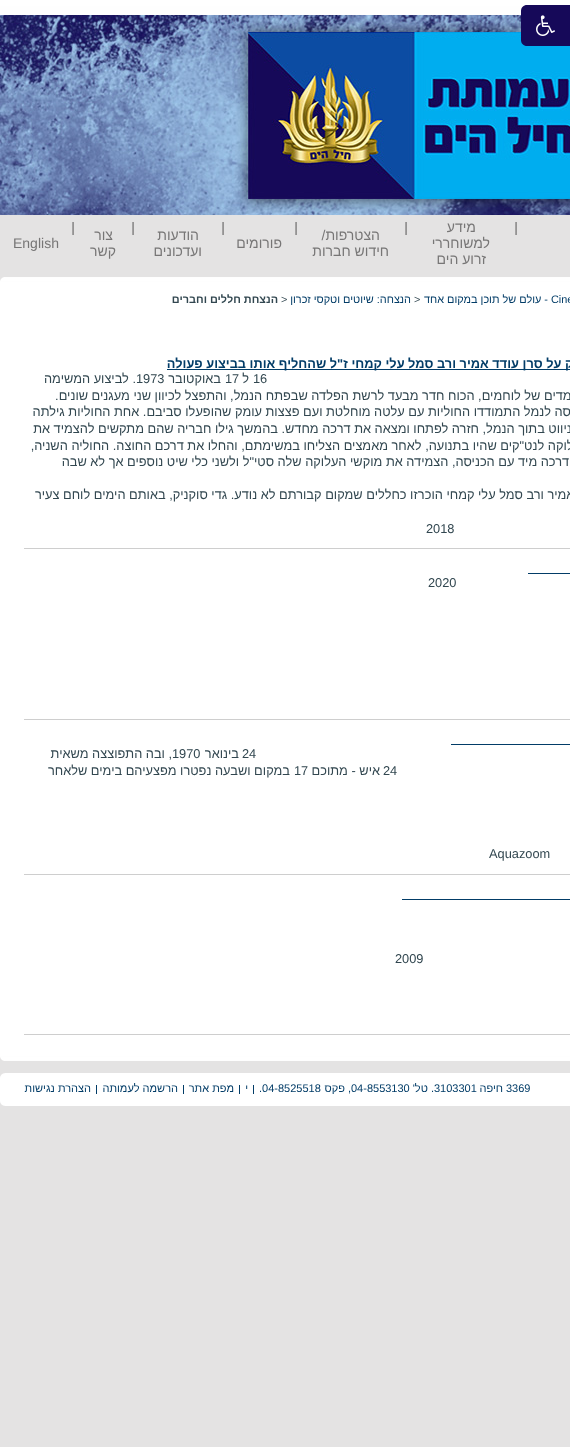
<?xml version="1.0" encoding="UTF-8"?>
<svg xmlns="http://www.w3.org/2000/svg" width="570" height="1447">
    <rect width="100%" height="100%" fill="#E4E3E3"/>
    <image x="0" y="0" width="570" height="15" href="img_01.png"/>
    <image x="0" y="15" width="570" height="200" href="img_03.png"/>
    <path d="M 527 5 H 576 V 46 H 527 C 523.5 46 521 43.5 521 40 V 11 C 521 7.5 523.5 5 527 5 Z" fill="#160959"/>
    <image x="536" y="15" width="19" height="21" href="img_02.png"/>
    <image x="515" y="222" width="2" height="13" href="img_04.png"/>
    <text x="476" y="232" font-family="Liberation Sans" font-size="14" direction="rtl" fill="#777676">מידע</text>
    <text x="490" y="248" font-family="Liberation Sans" font-size="14" direction="rtl" fill="#777676">למשוחררי</text>
    <text x="486" y="264" font-family="Liberation Sans" font-size="14" direction="rtl" fill="#777676">זרוע הים</text>
    <image x="405" y="222" width="2" height="13" href="img_04.png"/>
    <text x="380" y="240" font-family="Liberation Sans" font-size="14" direction="rtl" fill="#777676">הצטרפות/</text>
    <text x="389" y="256" font-family="Liberation Sans" font-size="14" direction="rtl" fill="#777676">חידוש חברות</text>
    <image x="295" y="222" width="2" height="13" href="img_04.png"/>
    <text x="282" y="248" font-family="Liberation Sans" font-size="14" direction="rtl" fill="#777676">פורומים</text>
    <image x="222" y="222" width="2" height="13" href="img_04.png"/>
    <text x="199" y="240" font-family="Liberation Sans" font-size="14" direction="rtl" fill="#777676">הודעות</text>
    <text x="202" y="256" font-family="Liberation Sans" font-size="14" direction="rtl" fill="#777676">ועדכונים</text>
    <image x="132" y="222" width="2" height="13" href="img_04.png"/>
    <text x="113" y="240" font-family="Liberation Sans" font-size="14" direction="rtl" fill="#777676">צור</text>
    <text x="116" y="256" font-family="Liberation Sans" font-size="14" direction="rtl" fill="#777676">קשר</text>
    <image x="72" y="222" width="2" height="13" href="img_04.png"/>
    <text x="13" y="248" font-family="Liberation Sans" font-size="14" fill="#777676">English</text>
    <rect x="0" y="282" width="570" height="774" fill="#FFFFFF"/>
    <rect x="2" y="277" width="1" height="1" fill="#ECEBEB"/>
    <rect x="3" y="277" width="1" height="1" fill="#F8F8F8"/>
    <rect x="4" y="277" width="566" height="1" fill="#FEFEFE"/>
    <rect x="1" y="278" width="1" height="1" fill="#F2F1F1"/>
    <rect x="2" y="278" width="568" height="1" fill="#FFFFFF"/>
    <rect x="0" y="279" width="1" height="1" fill="#ECEBEB"/>
    <rect x="1" y="279" width="569" height="2" fill="#FFFFFF"/>
    <rect x="0" y="280" width="1" height="1" fill="#F8F8F8"/>
    <rect x="0" y="281" width="570" height="1" fill="#FEFEFE"/>
    <text x="551" y="303" font-family="Liberation Sans" font-size="10.9" fill="#023C67">Cine</text>
    <text x="548" y="303" font-family="Liberation Sans" font-size="10.9" direction="rtl" fill="#023C67">- עולם של תוכן במקום אחד</text>
    <text x="414" y="303" font-family="Liberation Sans" font-size="10.9" fill="#324750">&gt;</text>
    <text x="411" y="303" font-family="Liberation Sans" font-size="10.9" direction="rtl" fill="#023C67">הנצחה: שיוטים וטקסי זכרון</text>
    <text x="281" y="303" font-family="Liberation Sans" font-size="10.9" fill="#324750">&gt;</text>
    <text x="278" y="303" font-family="Liberation Sans" font-size="10.9" font-weight="700" direction="rtl" fill="#324750">הנצחת חללים וחברים</text>
    <rect x="167" y="369" width="403" height="1" fill="#023C67"/>
    <text x="625" y="368" font-family="Liberation Sans" font-size="12.8" font-weight="700" direction="rtl" fill="#023C67">גדי סוקניק על סרן עודד אמיר ורב סמל עלי קמחי ז"ל שהחליף אותו בביצוע פעולה</text>
    <text x="253" y="383" font-family="Liberation Sans" font-size="12.8" fill="#324750">16</text>
    <text x="249" y="383" font-family="Liberation Sans" font-size="12.8" direction="rtl" fill="#324750">ל</text>
    <text x="225" y="383" font-family="Liberation Sans" font-size="12.8" fill="#324750">17</text>
    <text x="221" y="383" font-family="Liberation Sans" font-size="12.8" direction="rtl" fill="#324750">באוקטובר</text>
    <text x="136" y="383" font-family="Liberation Sans" font-size="12.8" fill="#324750">1973</text>
    <text x="136" y="383" font-family="Liberation Sans" font-size="12.8" direction="rtl" fill="#324750">. לביצוע המשימה</text>
    <text font-family="Liberation Sans" font-size="12.8" direction="rtl" fill="#324750">
        <tspan x="625" y="400">יצאו שני צמדים של לוחמים, הכוח חדר מבעד לרשת הפלדה שבפתח הנמל, והתפצל לכיוון שני מעגנים שונים.</tspan>
        <tspan x="625" y="416">מרגע הכניסה לנמל התמודדו החוליות עם עלטה מוחלטת ועם פצצות עומק שהופעלו סביבם. אחת החוליות גילתה</tspan>
        <tspan x="625" y="433">שטעתה בניווט בתוך הנמל, חזרה לפתחו ומצאה את דרכה מחדש. בהמשך גילו חבריה שהם מתקשים להצמיד את</tspan>
        <tspan x="625" y="450">מוקשי העלוקה לנט"קים שהיו בתנועה, לאחר מאמצים הצליחו במשימתם, והחלו את דרכם החוצה. החוליה השניה,</tspan>
        <tspan x="625" y="466">מצאה את דרכה מיד עם הכניסה, הצמידה את מוקשי העלוקה שלה סטי"ל ולשני כלי שיט נוספים אך לא שבה</tspan>
    </text>
    <text x="625" y="499" font-family="Liberation Sans" font-size="12.8" direction="rtl" fill="#324750">סרן עודד אמיר ורב סמל עלי קמחי הוכרזו כחללים שמקום קבורתם לא נודע. גדי סוקניק, באותם הימים לוחם צעיר</text>
    <text x="426" y="533" font-family="Liberation Sans" font-size="12.8" fill="#324750">2018</text>
    <rect x="24" y="548" width="546" height="1" fill="#CECECE"/>
    <rect x="528" y="573" width="42" height="1" fill="#023C67"/>
    <text x="428" y="587" font-family="Liberation Sans" font-size="12.8" fill="#324750">2020</text>
    <rect x="24" y="719" width="546" height="1" fill="#CECECE"/>
    <rect x="451" y="744" width="119" height="1" fill="#023C67"/>
    <text x="242" y="758" font-family="Liberation Sans" font-size="12.8" fill="#324750">24</text>
    <text x="239" y="758" font-family="Liberation Sans" font-size="12.8" direction="rtl" fill="#324750">בינואר</text>
    <text x="172" y="758" font-family="Liberation Sans" font-size="12.8" fill="#324750">1970</text>
    <text x="172" y="758" font-family="Liberation Sans" font-size="12.8" direction="rtl" fill="#324750">, ובה התפוצצה משאית</text>
    <text x="383" y="775" font-family="Liberation Sans" font-size="12.8" fill="#324750">24</text>
    <text x="380" y="775" font-family="Liberation Sans" font-size="12.8" direction="rtl" fill="#324750">איש - מתוכם</text>
    <text x="294" y="775" font-family="Liberation Sans" font-size="12.8" fill="#324750">17</text>
    <text x="290" y="775" font-family="Liberation Sans" font-size="12.8" direction="rtl" fill="#324750">במקום ושבעה נפטרו מפצעיהם בימים שלאחר</text>
    <text x="489" y="858" font-family="Liberation Sans" font-size="12.8" fill="#324750">Aquazoom</text>
    <rect x="24" y="874" width="546" height="1" fill="#CECECE"/>
    <rect x="402" y="899" width="168" height="1" fill="#023C67"/>
    <text x="395" y="963" font-family="Liberation Sans" font-size="12.8" fill="#324750">2009</text>
    <rect x="24" y="1034" width="546" height="1" fill="#CECECE"/>
    <rect x="0" y="1056" width="570" height="1" fill="#FEFEFE"/>
    <rect x="0" y="1057" width="1" height="1" fill="#F8F8F8"/>
    <rect x="1" y="1057" width="569" height="2" fill="#FFFFFF"/>
    <rect x="0" y="1058" width="1" height="1" fill="#ECEBEB"/>
    <rect x="1" y="1059" width="1" height="1" fill="#F2F1F1"/>
    <rect x="2" y="1059" width="568" height="1" fill="#FFFFFF"/>
    <rect x="2" y="1060" width="1" height="1" fill="#ECEBEB"/>
    <rect x="3" y="1060" width="1" height="1" fill="#F8F8F8"/>
    <rect x="4" y="1060" width="566" height="1" fill="#FEFEFE"/>
    <image x="0" y="1073" width="570" height="33" href="img_05.png"/>
    <text x="506" y="1092" font-family="Liberation Sans" font-size="11" fill="#023C67">3369</text>
    <text x="503" y="1092" font-family="Liberation Sans" font-size="11" direction="rtl" fill="#023C67">חיפה</text>
    <text x="434" y="1092" font-family="Liberation Sans" font-size="11" fill="#023C67">3103301</text>
    <text x="434" y="1092" font-family="Liberation Sans" font-size="11" direction="rtl" fill="#023C67">. טל'</text>
    <text x="351" y="1092" font-family="Liberation Sans" font-size="11" fill="#023C67">04-8553130</text>
    <text x="351" y="1092" font-family="Liberation Sans" font-size="11" direction="rtl" fill="#023C67">, פקס</text>
    <text x="259" y="1092" font-family="Liberation Sans" font-size="11" fill="#023C67">.04-8525518</text>
    <rect x="253" y="1085" width="1" height="9" fill="#023C67"/>
    <text x="248" y="1092" font-family="Liberation Sans" font-size="11" direction="rtl" fill="#023C67">י</text>
    <rect x="239" y="1085" width="1" height="9" fill="#023C67"/>
    <text x="234" y="1092" font-family="Liberation Sans" font-size="11" direction="rtl" fill="#023C67">מפת אתר</text>
    <rect x="183" y="1085" width="1" height="9" fill="#023C67"/>
    <text x="178" y="1092" font-family="Liberation Sans" font-size="11" direction="rtl" fill="#023C67">הרשמה לעמותה</text>
    <rect x="96" y="1085" width="1" height="9" fill="#023C67"/>
    <text x="91" y="1092" font-family="Liberation Sans" font-size="11" direction="rtl" fill="#023C67">הצהרת נגישות</text>
</svg>
